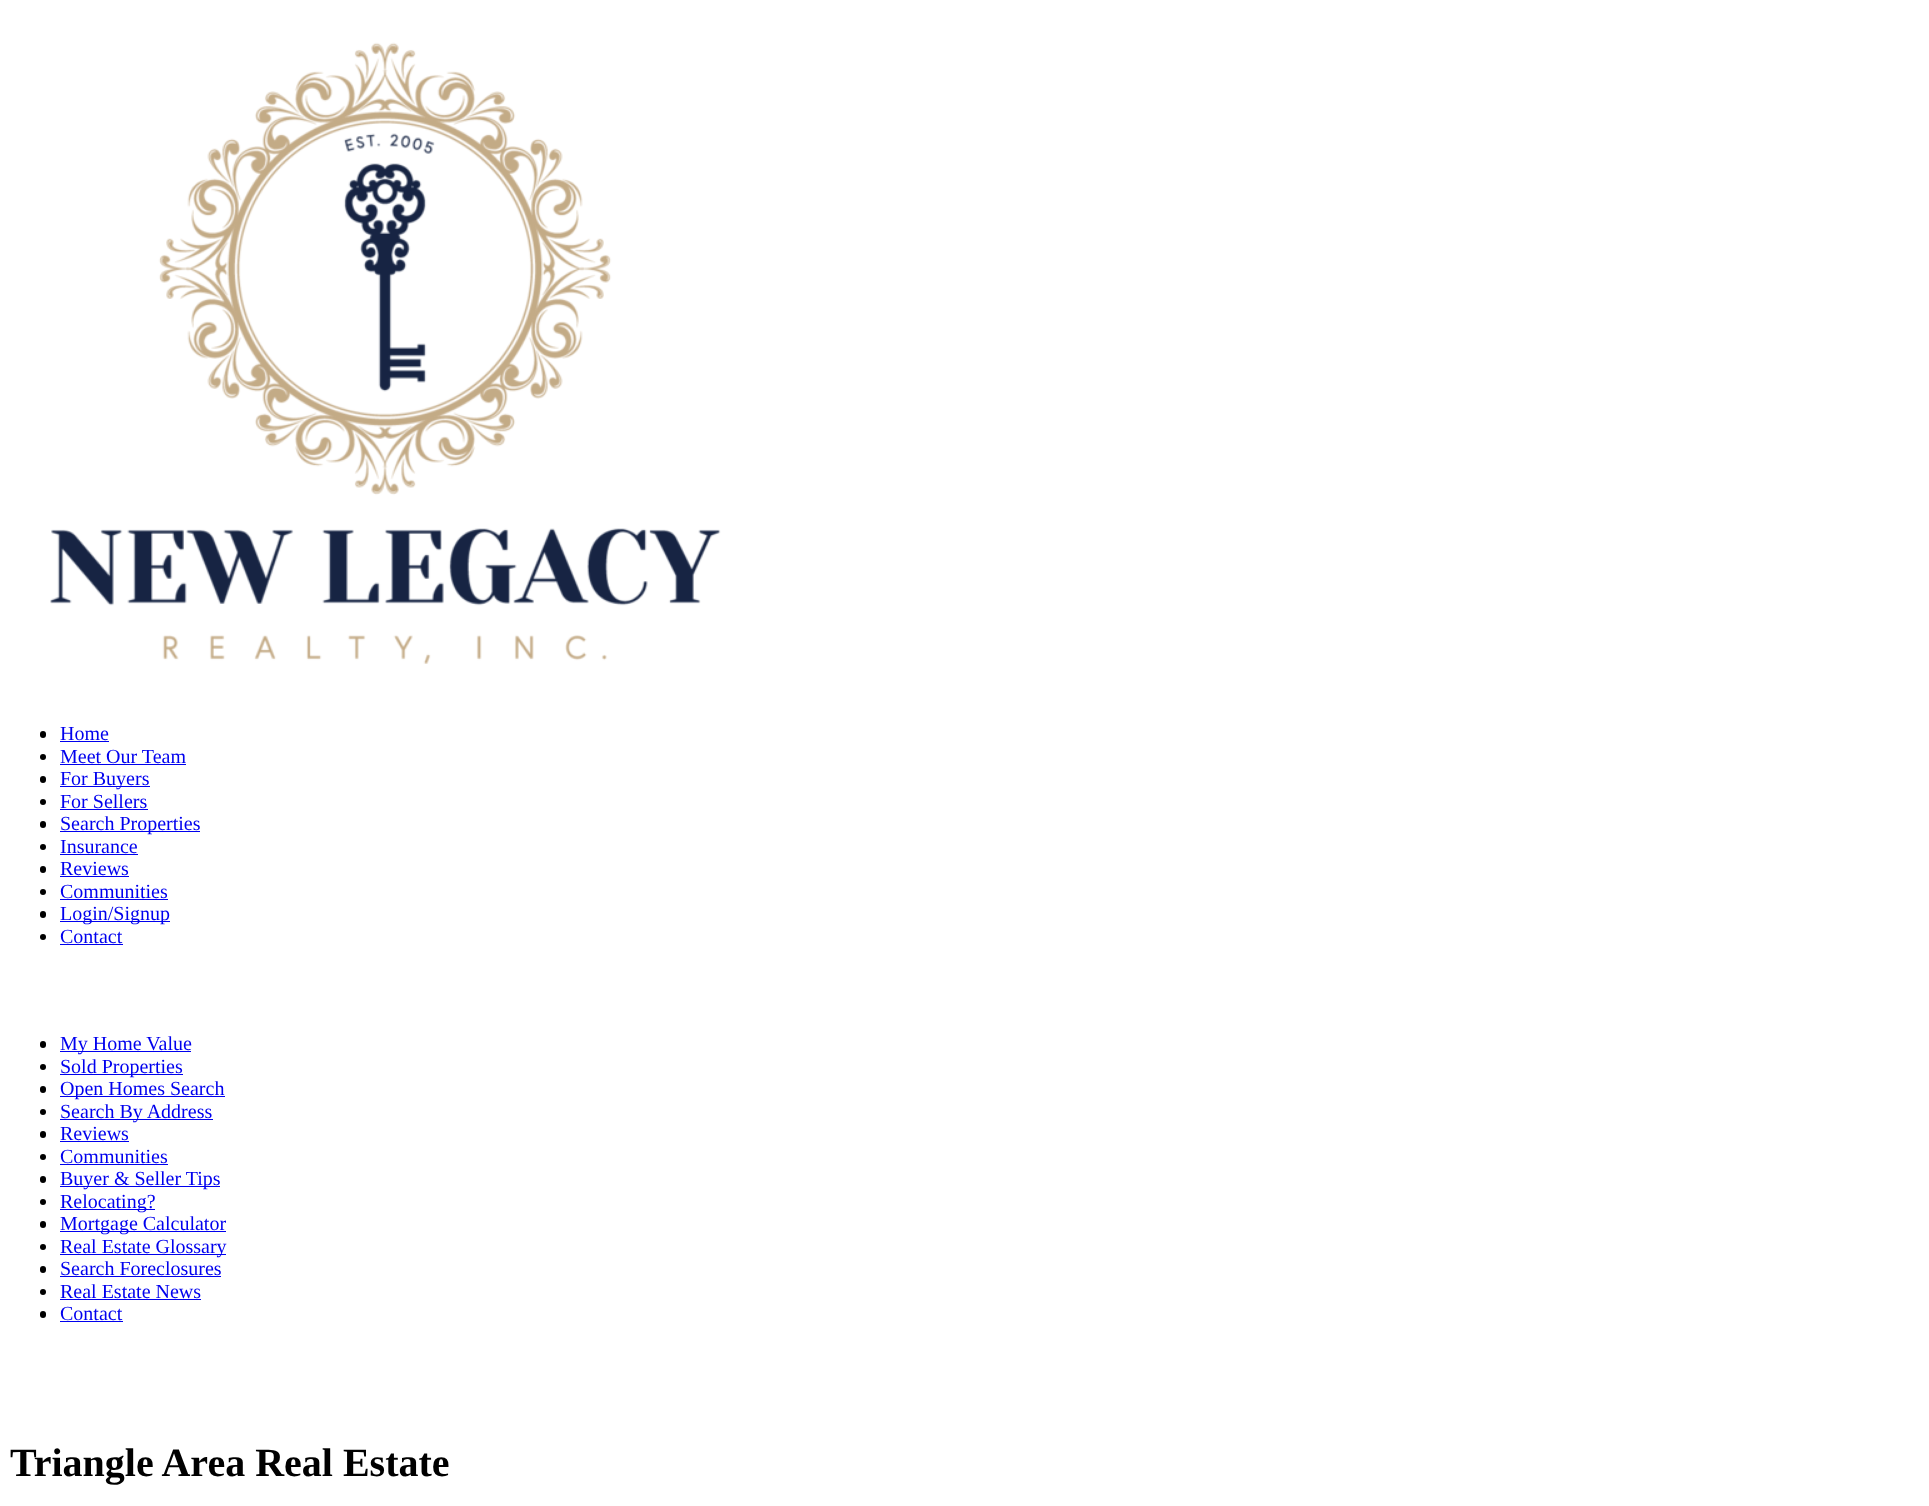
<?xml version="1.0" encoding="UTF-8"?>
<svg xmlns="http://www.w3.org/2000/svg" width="1929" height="1506">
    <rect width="100%" height="100%" fill="#FFFFFF"/>
    <image x="50" y="42" width="671" height="622" href="img_01.png"/>
    <rect x="40" y="731" width="6" height="7" rx="3" fill="#000000"/>
    <text x="60" y="740" font-family="Liberation Serif" font-size="20" fill="#0000EE">Home</text>
    <rect x="60" y="741" width="49" height="1" fill="#0000EE"/>
    <circle cx="43" cy="757" r="3" fill="#000000"/>
    <text x="60" y="763" font-family="Liberation Serif" font-size="20" fill="#0000EE">Meet Our Team</text>
    <rect x="60" y="764" width="126" height="1" fill="#0000EE"/>
    <rect x="40" y="776" width="6" height="7" rx="3" fill="#000000"/>
    <rect x="60" y="786" width="90" height="1" fill="#0000EE"/>
    <text x="60" y="785" font-family="Liberation Serif" font-size="20" fill="#0000EE">For Buyers</text>
    <circle cx="43" cy="802" r="3" fill="#000000"/>
    <text x="60" y="808" font-family="Liberation Serif" font-size="20" fill="#0000EE">For Sellers</text>
    <rect x="60" y="809" width="88" height="1" fill="#0000EE"/>
    <rect x="40" y="821" width="6" height="7" rx="3" fill="#000000"/>
    <rect x="60" y="831" width="140" height="1" fill="#0000EE"/>
    <text x="60" y="830" font-family="Liberation Serif" font-size="20" fill="#0000EE">Search Properties</text>
    <circle cx="43" cy="847" r="3" fill="#000000"/>
    <text x="60" y="853" font-family="Liberation Serif" font-size="20" fill="#0000EE">Insurance</text>
    <rect x="60" y="854" width="78" height="1" fill="#0000EE"/>
    <rect x="40" y="866" width="6" height="7" rx="3" fill="#000000"/>
    <text x="60" y="875" font-family="Liberation Serif" font-size="20" fill="#0000EE">Reviews</text>
    <rect x="60" y="876" width="69" height="1" fill="#0000EE"/>
    <circle cx="43" cy="892" r="3" fill="#000000"/>
    <text x="60" y="898" font-family="Liberation Serif" font-size="20" fill="#0000EE">Communities</text>
    <rect x="60" y="899" width="108" height="1" fill="#0000EE"/>
    <rect x="40" y="911" width="6" height="7" rx="3" fill="#000000"/>
    <rect x="60" y="921" width="110" height="1" fill="#0000EE"/>
    <text x="60" y="920" font-family="Liberation Serif" font-size="20" fill="#0000EE">Login/Signup</text>
    <circle cx="43" cy="937" r="3" fill="#000000"/>
    <text x="60" y="943" font-family="Liberation Serif" font-size="20" fill="#0000EE">Contact</text>
    <rect x="60" y="944" width="63" height="1" fill="#0000EE"/>
    <rect x="40" y="1041" width="6" height="7" rx="3" fill="#000000"/>
    <rect x="60" y="1051" width="131" height="1" fill="#0000EE"/>
    <text x="60" y="1050" font-family="Liberation Serif" font-size="20" fill="#0000EE">My Home Value</text>
    <circle cx="43" cy="1067" r="3" fill="#000000"/>
    <rect x="60" y="1074" width="123" height="1" fill="#0000EE"/>
    <text x="60" y="1073" font-family="Liberation Serif" font-size="20" fill="#0000EE">Sold Properties</text>
    <rect x="40" y="1086" width="6" height="7" rx="3" fill="#000000"/>
    <rect x="60" y="1096" width="165" height="1" fill="#0000EE"/>
    <text x="60" y="1095" font-family="Liberation Serif" font-size="20" fill="#0000EE">Open Homes Search</text>
    <circle cx="43" cy="1112" r="3" fill="#000000"/>
    <rect x="60" y="1119" width="153" height="1" fill="#0000EE"/>
    <text x="60" y="1118" font-family="Liberation Serif" font-size="20" fill="#0000EE">Search By Address</text>
    <rect x="40" y="1131" width="6" height="7" rx="3" fill="#000000"/>
    <text x="60" y="1140" font-family="Liberation Serif" font-size="20" fill="#0000EE">Reviews</text>
    <rect x="60" y="1141" width="69" height="1" fill="#0000EE"/>
    <circle cx="43" cy="1157" r="3" fill="#000000"/>
    <text x="60" y="1163" font-family="Liberation Serif" font-size="20" fill="#0000EE">Communities</text>
    <rect x="60" y="1164" width="108" height="1" fill="#0000EE"/>
    <rect x="40" y="1176" width="6" height="7" rx="3" fill="#000000"/>
    <rect x="60" y="1186" width="160" height="1" fill="#0000EE"/>
    <text x="60" y="1185" font-family="Liberation Serif" font-size="20" fill="#0000EE">Buyer &amp; Seller Tips</text>
    <circle cx="43" cy="1202" r="3" fill="#000000"/>
    <rect x="60" y="1209" width="95" height="1" fill="#0000EE"/>
    <text x="60" y="1208" font-family="Liberation Serif" font-size="20" fill="#0000EE">Relocating?</text>
    <rect x="40" y="1221" width="6" height="7" rx="3" fill="#000000"/>
    <rect x="60" y="1231" width="166" height="1" fill="#0000EE"/>
    <text x="60" y="1230" font-family="Liberation Serif" font-size="20" fill="#0000EE">Mortgage Calculator</text>
    <circle cx="43" cy="1247" r="3" fill="#000000"/>
    <rect x="60" y="1254" width="166" height="1" fill="#0000EE"/>
    <text x="60" y="1253" font-family="Liberation Serif" font-size="20" fill="#0000EE">Real Estate Glossary</text>
    <rect x="40" y="1266" width="6" height="7" rx="3" fill="#000000"/>
    <text x="60" y="1275" font-family="Liberation Serif" font-size="20" fill="#0000EE">Search Foreclosures</text>
    <rect x="60" y="1276" width="161" height="1" fill="#0000EE"/>
    <circle cx="43" cy="1292" r="3" fill="#000000"/>
    <text x="60" y="1298" font-family="Liberation Serif" font-size="20" fill="#0000EE">Real Estate News</text>
    <rect x="60" y="1299" width="141" height="1" fill="#0000EE"/>
    <rect x="40" y="1311" width="6" height="7" rx="3" fill="#000000"/>
    <text x="60" y="1320" font-family="Liberation Serif" font-size="20" fill="#0000EE">Contact</text>
    <rect x="60" y="1321" width="63" height="1" fill="#0000EE"/>
    <text x="10" y="1476" font-family="Liberation Serif" font-size="40" font-weight="700" fill="#000000">Triangle Area Real Estate</text>
</svg>
